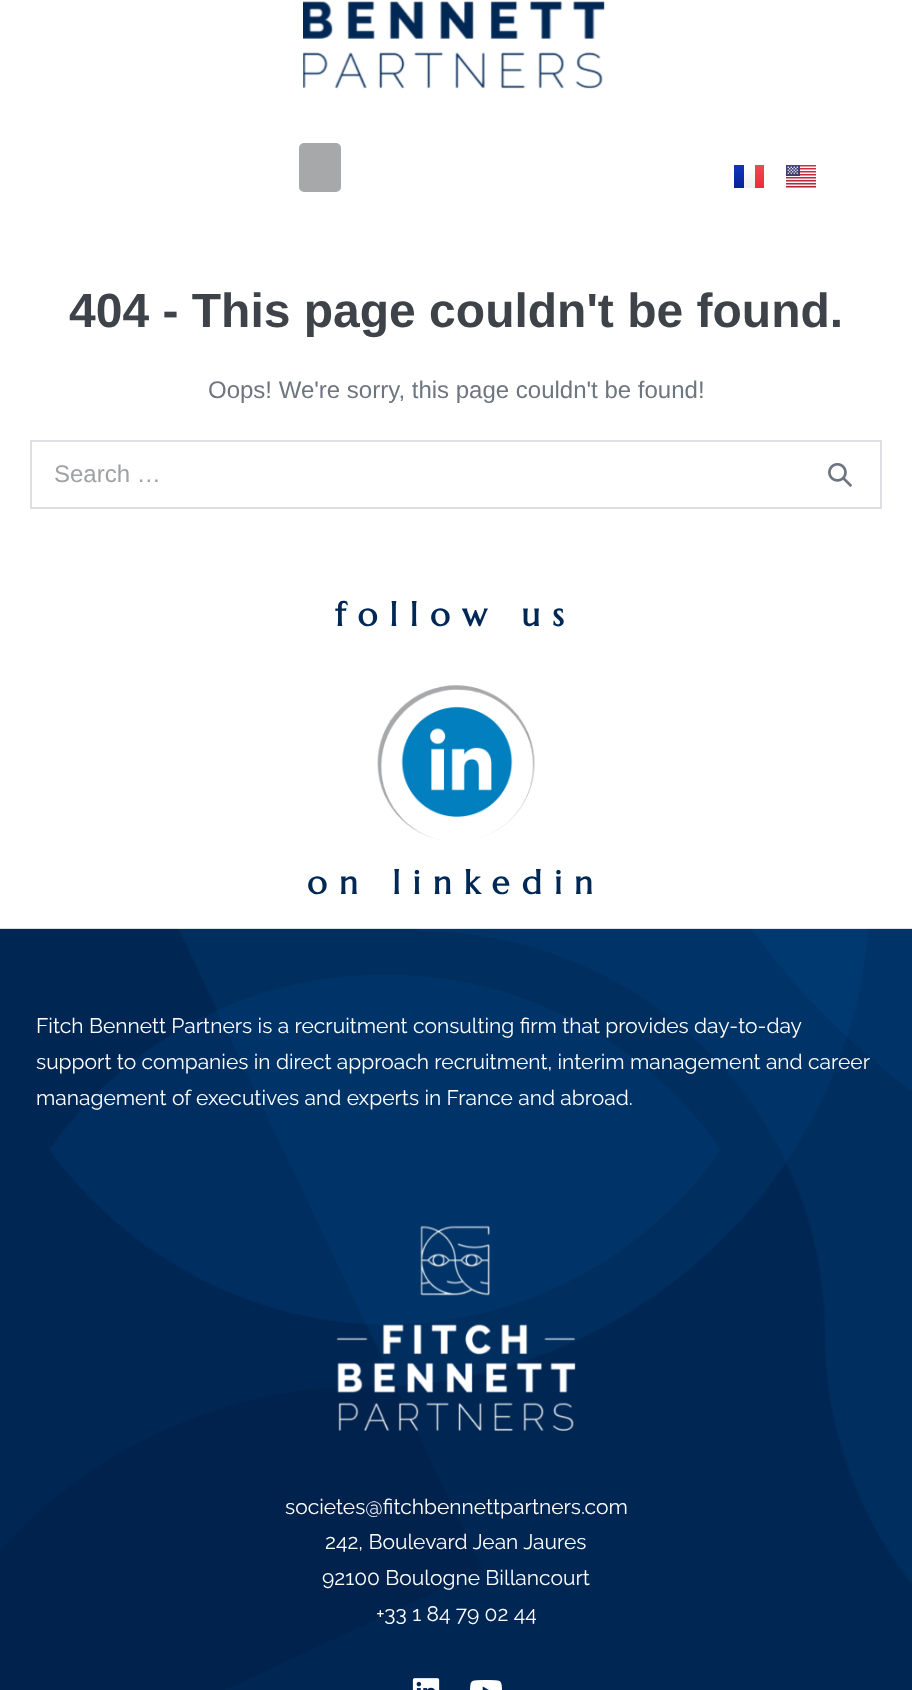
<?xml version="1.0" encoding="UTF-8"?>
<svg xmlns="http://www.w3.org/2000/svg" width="912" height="1690">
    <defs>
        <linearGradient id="g1" gradientUnits="userSpaceOnUse" x1="757" y1="165" x2="757" y2="188"><stop offset="0" stop-color="#F44653"/><stop offset="1" stop-color="#EE2A39"/></linearGradient>
        <linearGradient id="g2" gradientUnits="userSpaceOnUse" x1="739" y1="165" x2="739" y2="188"><stop offset="0" stop-color="#1035BB"/><stop offset="1" stop-color="#042396"/></linearGradient>
        <linearGradient id="g3" gradientUnits="userSpaceOnUse" x1="749" y1="165" x2="749" y2="188"><stop offset="0" stop-color="#FFFFFF"/><stop offset="1" stop-color="#F0F0F0"/></linearGradient>
    </defs>
    <rect width="100%" height="100%" fill="#FFFFFF"/>
    <image x="303" y="1" width="302" height="88" href="img_01.png"/>
    <rect x="299" y="143" width="42" height="49" rx="5" fill="#A7A8AA"/>
    <rect x="755" y="165" width="9" height="23" fill="url(#g1)"/>
    <rect x="734" y="165" width="10" height="23" fill="url(#g2)"/>
    <rect x="744" y="169" width="11" height="19" fill="url(#g3)"/>
    <image x="786" y="165" width="30" height="23" href="img_02.png"/>
    <text x="69" y="327" font-family="Liberation Sans" font-size="48" font-weight="700" fill="#3E4349">404 - This page couldn't be found.</text>
    <text x="208" y="398" font-family="Liberation Sans" font-size="24" fill="#6D7680">Oops! We're sorry, this page couldn't be found!</text>
    <rect x="31" y="441" width="850" height="67" fill="none" stroke="#DEDEE5" stroke-width="2"/>
    <text x="54" y="482" font-family="Liberation Sans" font-size="24" fill="#9FA1A4">Search …</text>
    <image x="828" y="463" width="24" height="24" href="img_03.png"/>
    <text x="335" y="626" font-family="Marcellus" font-size="33" font-weight="700" letter-spacing="12.25" fill="#002855">follow us</text>
    <image x="377" y="685" width="158" height="155" href="img_04.png"/>
    <text x="307" y="894" font-family="Marcellus" font-size="33" font-weight="700" letter-spacing="12.25" fill="#002855">on linkedin</text>
    <rect x="0" y="929" width="912" height="761" fill="#002855"/>
    <image x="0" y="928" width="912" height="762" href="img_05.png"/>
    <text font-family="Raleway" font-size="21" fill="#FFFFFF">
        <tspan x="36" y="1033">Fitch Bennett Partners is a recruitment consulting firm that provides day-to-day</tspan>
        <tspan x="36" y="1069">support to companies in direct approach recruitment, interim management and career</tspan>
        <tspan x="36" y="1105">management of executives and experts in France and abroad.</tspan>
    </text>
    <image x="336" y="1225" width="240" height="206" href="img_06.png"/>
    <text x="285" y="1514" font-family="Raleway" font-size="21" fill="#FFFFFF">societes@fitchbennettpartners.com</text>
    <text x="325" y="1549" font-family="Raleway" font-size="21" fill="#FFFFFF">242, Boulevard Jean Jaures</text>
    <text x="322" y="1585" font-family="Raleway" font-size="21" fill="#FFFFFF">92100 Boulogne Billancourt</text>
    <text x="376" y="1621" font-family="Raleway" font-size="21" fill="#FFFFFF">+33 1 84 79 02 44</text>
    <image x="412" y="1678" width="28" height="12" href="img_07.png"/>
    <image x="470" y="1680" width="32" height="10" href="img_08.png"/>
</svg>
